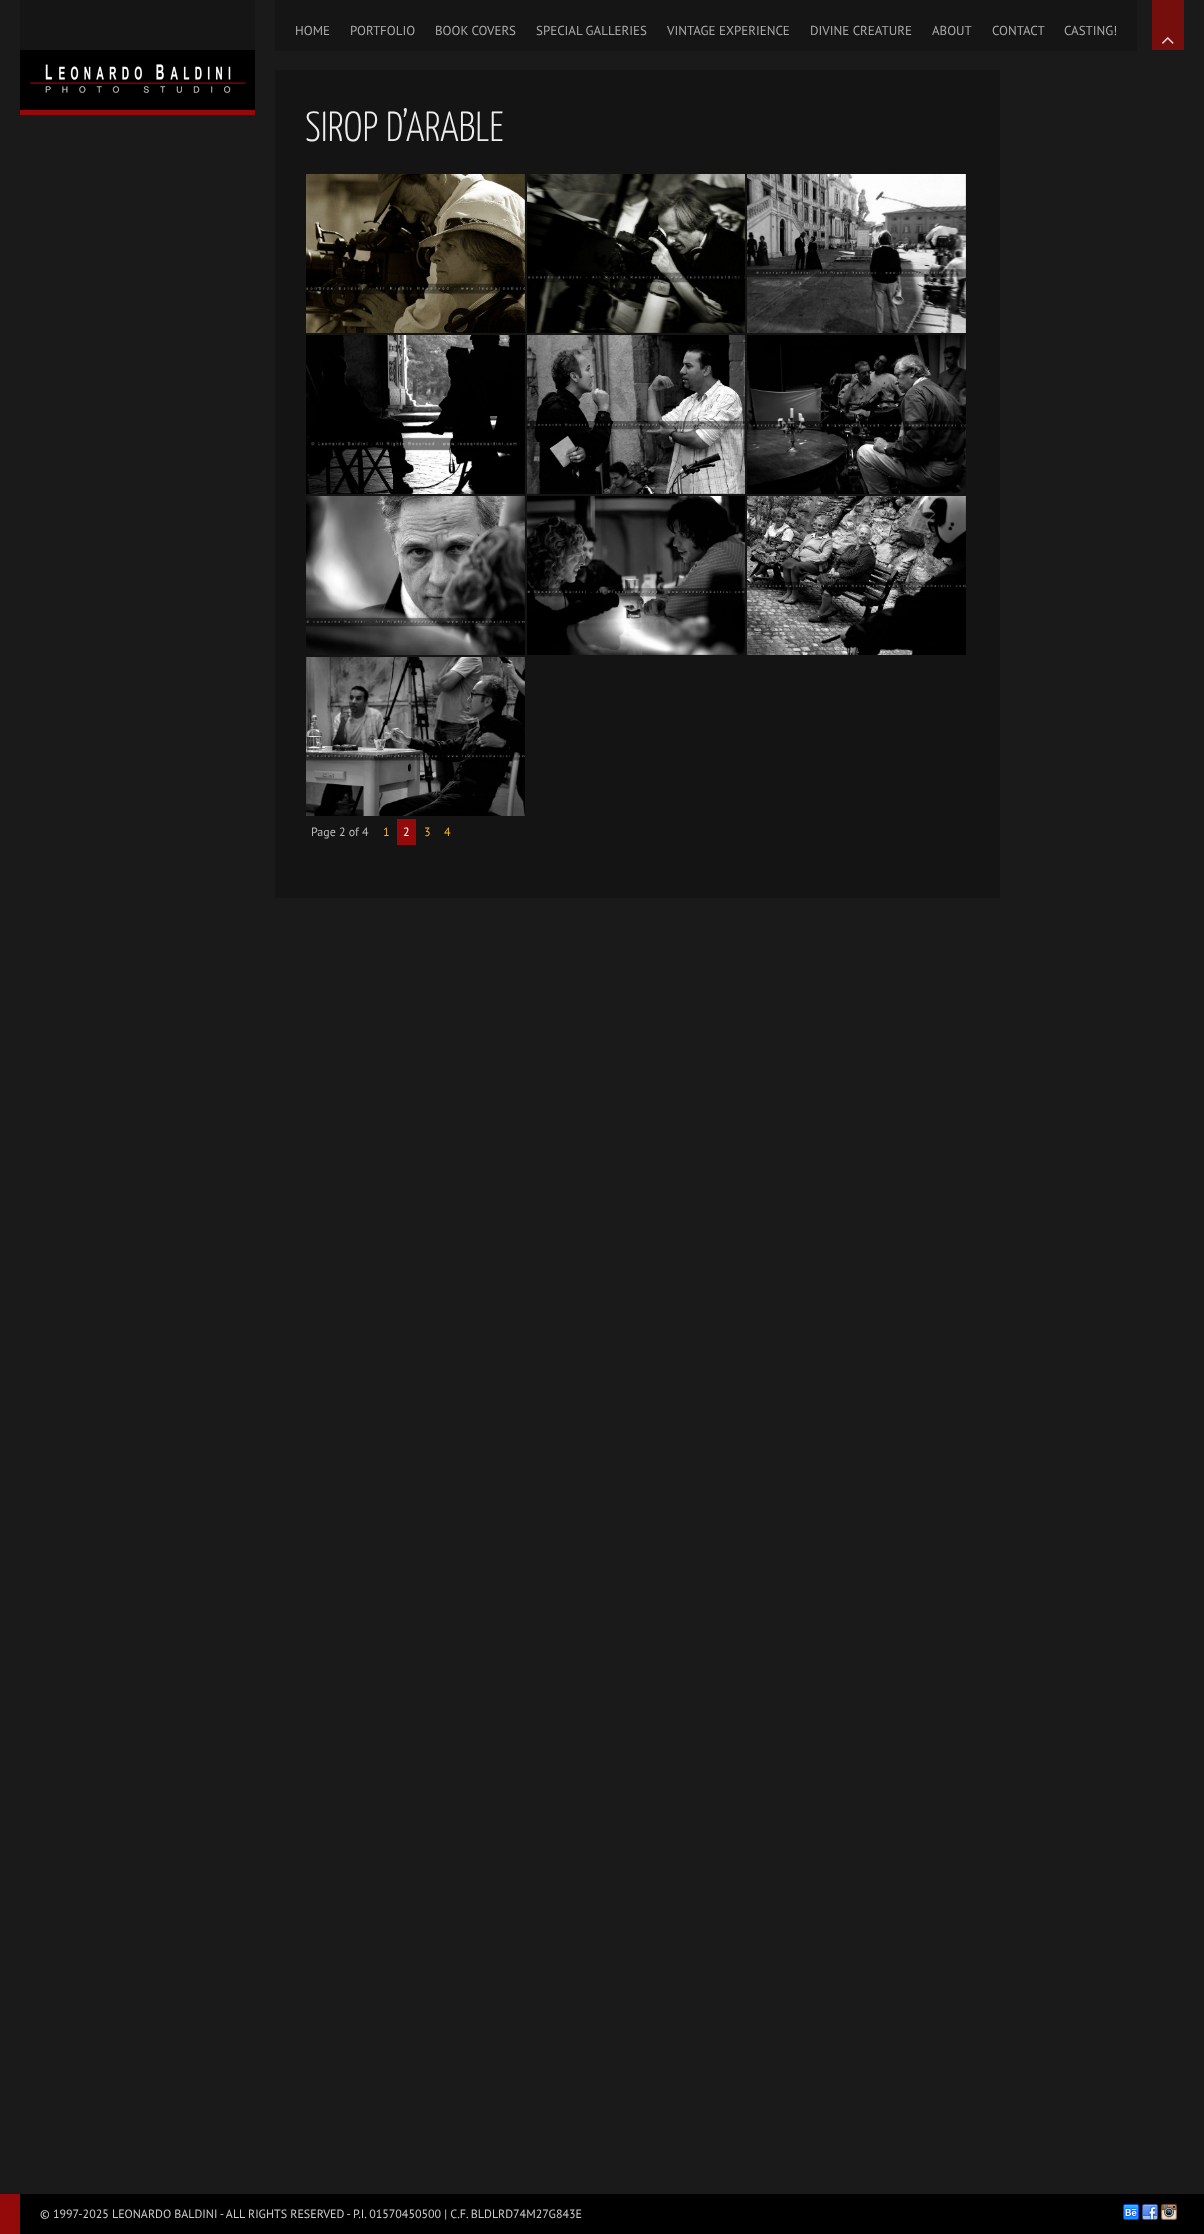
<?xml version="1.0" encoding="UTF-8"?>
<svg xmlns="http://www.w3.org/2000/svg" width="1204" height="2234">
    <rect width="100%" height="100%" fill="#1A1A1A"/>
    <rect x="20" y="0" width="235" height="50" fill="#151515"/>
    <rect x="20" y="110" width="235" height="5" fill="#940A0A"/>
    <image x="20" y="50" width="235" height="60" href="img_01.png"/>
    <rect x="275" y="0" width="862" height="51" fill="#151515"/>
    <text x="295" y="35" font-family="PT Sans" font-size="13" fill="#AAAAAA">HOME</text>
    <text x="350" y="35" font-family="PT Sans" font-size="13" fill="#AAAAAA">PORTFOLIO</text>
    <text x="435" y="35" font-family="PT Sans" font-size="13" fill="#AAAAAA">BOOK COVERS</text>
    <text x="536" y="35" font-family="PT Sans" font-size="13" fill="#AAAAAA">SPECIAL GALLERIES</text>
    <text x="667" y="35" font-family="PT Sans" font-size="13" fill="#AAAAAA">VINTAGE EXPERIENCE</text>
    <text x="810" y="35" font-family="PT Sans" font-size="13" fill="#AAAAAA">DIVINE CREATURE</text>
    <text x="932" y="35" font-family="PT Sans" font-size="13" fill="#AAAAAA">ABOUT</text>
    <text x="992" y="35" font-family="PT Sans" font-size="13" fill="#AAAAAA">CONTACT</text>
    <text x="1064" y="35" font-family="PT Sans" font-size="13" fill="#AAAAAA">CASTING!</text>
    <rect x="1152" y="0" width="32" height="50" fill="#760E0E"/>
    <image x="1162" y="37" width="12" height="7" href="img_02.png"/>
    <rect x="275" y="70" width="725" height="828" fill="#141414"/>
    <text x="305" y="141" font-family="Yanone Kaffeesatz" font-size="42" font-weight="300" fill="#EEEEEE">SIROP D’ARABLE</text>
    <image x="306" y="174" width="219" height="159" href="img_03.png"/>
    <image x="527" y="174" width="218" height="159" href="img_04.png"/>
    <image x="747" y="174" width="219" height="159" href="img_05.png"/>
    <image x="306" y="335" width="219" height="159" href="img_06.png"/>
    <image x="527" y="335" width="218" height="159" href="img_07.png"/>
    <image x="747" y="335" width="219" height="159" href="img_08.png"/>
    <image x="306" y="496" width="219" height="159" href="img_09.png"/>
    <image x="527" y="496" width="218" height="159" href="img_10.png"/>
    <image x="747" y="496" width="219" height="159" href="img_11.png"/>
    <image x="306" y="657" width="219" height="159" href="img_12.png"/>
    <text x="311" y="836" font-family="PT Sans" font-size="12" fill="#BBBBBB">Page 2 of 4</text>
    <text x="383" y="836" font-family="PT Sans" font-size="12" fill="#FAB428">1</text>
    <rect x="397" y="819" width="19" height="26" fill="#940A0A"/>
    <text x="403" y="836" font-family="PT Sans" font-size="12" fill="#FFFFFF">2</text>
    <text x="424" y="836" font-family="PT Sans" font-size="12" fill="#FAB428">3</text>
    <text x="444" y="836" font-family="PT Sans" font-size="12" fill="#FAB428">4</text>
    <rect x="20" y="2194" width="1184" height="40" fill="#000000"/>
    <rect x="0" y="2194" width="20" height="40" fill="#940A0A"/>
    <text x="40" y="2218" font-family="PT Sans" font-size="12" fill="#CCCCCC">© 1997-2025 LEONARDO BALDINI - ALL RIGHTS RESERVED - P.I. 01570450500 | C.F. BLDLRD74M27G843E</text>
    <image x="1123" y="2204" width="16" height="16" href="img_13.png"/>
    <image x="1142" y="2204" width="16" height="16" href="img_14.png"/>
    <image x="1161" y="2204" width="16" height="16" href="img_15.png"/>
</svg>
